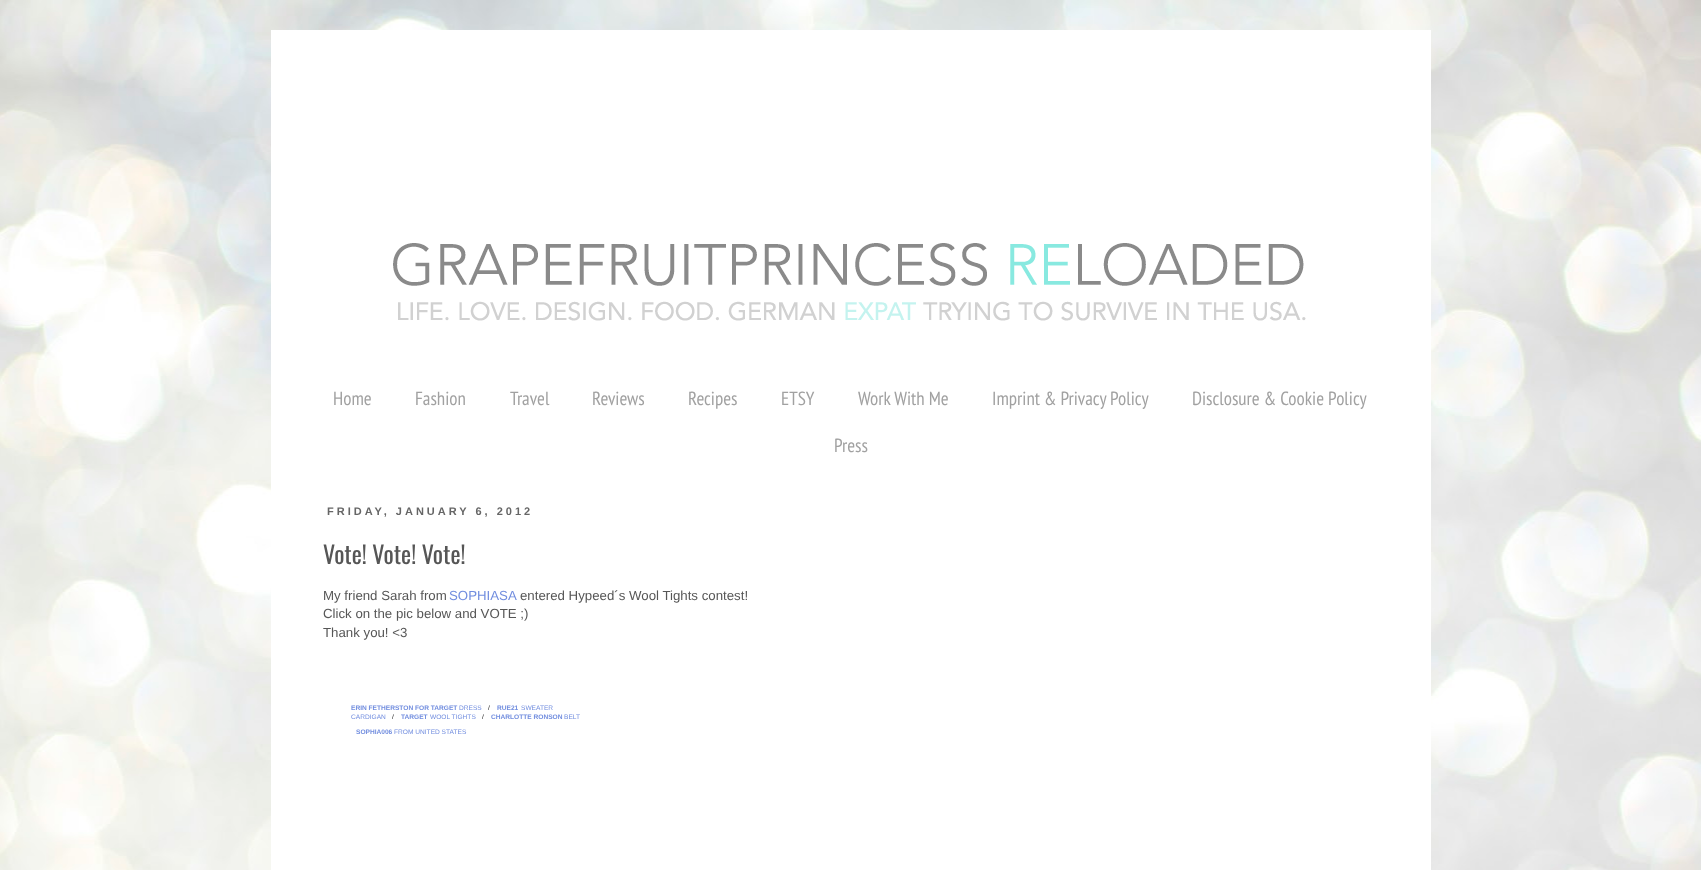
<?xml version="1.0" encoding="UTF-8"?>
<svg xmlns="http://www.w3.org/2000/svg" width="1701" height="870">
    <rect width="100%" height="100%" fill="#FFFFFF"/>
    <image x="0" y="400" width="1701" height="470" href="img_01.png"/>
    <image x="0" y="0" width="1701" height="400" href="img_02.png"/>
    <rect x="271" y="30" width="1160" height="840" fill="#FFFFFF"/>
    <image x="393" y="243" width="913" height="78" href="img_03.png"/>
    <text x="333" y="405" font-family="PT Sans Narrow" font-size="19" fill="#A1A1A1">Home</text>
    <text x="415" y="405" font-family="PT Sans Narrow" font-size="19" fill="#A1A1A1">Fashion</text>
    <text x="510" y="405" font-family="PT Sans Narrow" font-size="19" fill="#A1A1A1">Travel</text>
    <text x="592" y="405" font-family="PT Sans Narrow" font-size="19" fill="#A1A1A1">Reviews</text>
    <text x="688" y="405" font-family="PT Sans Narrow" font-size="19" fill="#A1A1A1">Recipes</text>
    <text x="781" y="405" font-family="PT Sans Narrow" font-size="19" fill="#A1A1A1">ETSY</text>
    <text x="858" y="405" font-family="PT Sans Narrow" font-size="19" fill="#A1A1A1">Work With Me</text>
    <text x="992" y="405" font-family="PT Sans Narrow" font-size="19" fill="#A1A1A1">Imprint &amp; Privacy Policy</text>
    <text x="1192" y="405" font-family="PT Sans Narrow" font-size="19" fill="#A1A1A1">Disclosure &amp; Cookie Policy</text>
    <text x="834" y="452" font-family="PT Sans Narrow" font-size="19" fill="#A1A1A1">Press</text>
    <text x="327" y="515" font-family="Liberation Sans" font-size="11" font-weight="700" letter-spacing="3" fill="#666666">FRIDAY, JANUARY 6, 2012</text>
    <text x="323" y="564" font-family="Oswald" font-size="24" fill="#565656">Vote! Vote! Vote!</text>
    <text x="323" y="600" font-family="Liberation Sans" font-size="13.25" fill="#565656">My friend Sarah from</text>
    <text x="449" y="600" font-family="Liberation Sans" font-size="13.25" fill="#718DDF">SOPHIASA</text>
    <text x="520" y="600" font-family="Liberation Sans" font-size="13.25" fill="#565656">entered Hypeed´s Wool Tights contest!</text>
    <text font-family="Liberation Sans" font-size="13.25" fill="#565656">
        <tspan x="323" y="618">Click on the pic below and VOTE ;)</tspan>
        <tspan x="323" y="637">Thank you! &lt;3</tspan>
    </text>
    <text x="351" y="710" font-family="Liberation Sans" font-size="6.6" font-weight="700" fill="#718DDF">ERIN FETHERSTON FOR TARGET</text>
    <text x="459" y="710" font-family="Liberation Sans" font-size="6.6" fill="#718DDF">DRESS</text>
    <text x="488" y="710" font-family="Liberation Sans" font-size="6.6" fill="#181818">/</text>
    <text x="497" y="710" font-family="Liberation Sans" font-size="6.6" font-weight="700" fill="#718DDF">RUE21</text>
    <text x="521" y="710" font-family="Liberation Sans" font-size="6.6" fill="#718DDF">SWEATER</text>
    <text x="351" y="719" font-family="Liberation Sans" font-size="6.6" fill="#718DDF">CARDIGAN</text>
    <text x="392" y="719" font-family="Liberation Sans" font-size="6.6" fill="#181818">/</text>
    <text x="401" y="719" font-family="Liberation Sans" font-size="6.6" font-weight="700" fill="#718DDF">TARGET</text>
    <text x="430" y="719" font-family="Liberation Sans" font-size="6.6" fill="#718DDF">WOOL TIGHTS</text>
    <text x="482" y="719" font-family="Liberation Sans" font-size="6.6" fill="#181818">/</text>
    <text x="491" y="719" font-family="Liberation Sans" font-size="6.6" font-weight="700" fill="#718DDF">CHARLOTTE RONSON</text>
    <text x="564" y="719" font-family="Liberation Sans" font-size="6.6" fill="#718DDF">BELT</text>
    <text x="356" y="734" font-family="Liberation Sans" font-size="6.6" font-weight="700" fill="#718DDF">SOPHIA006</text>
    <text x="394" y="734" font-family="Liberation Sans" font-size="6.6" fill="#718DDF">FROM UNITED STATES</text>
</svg>
